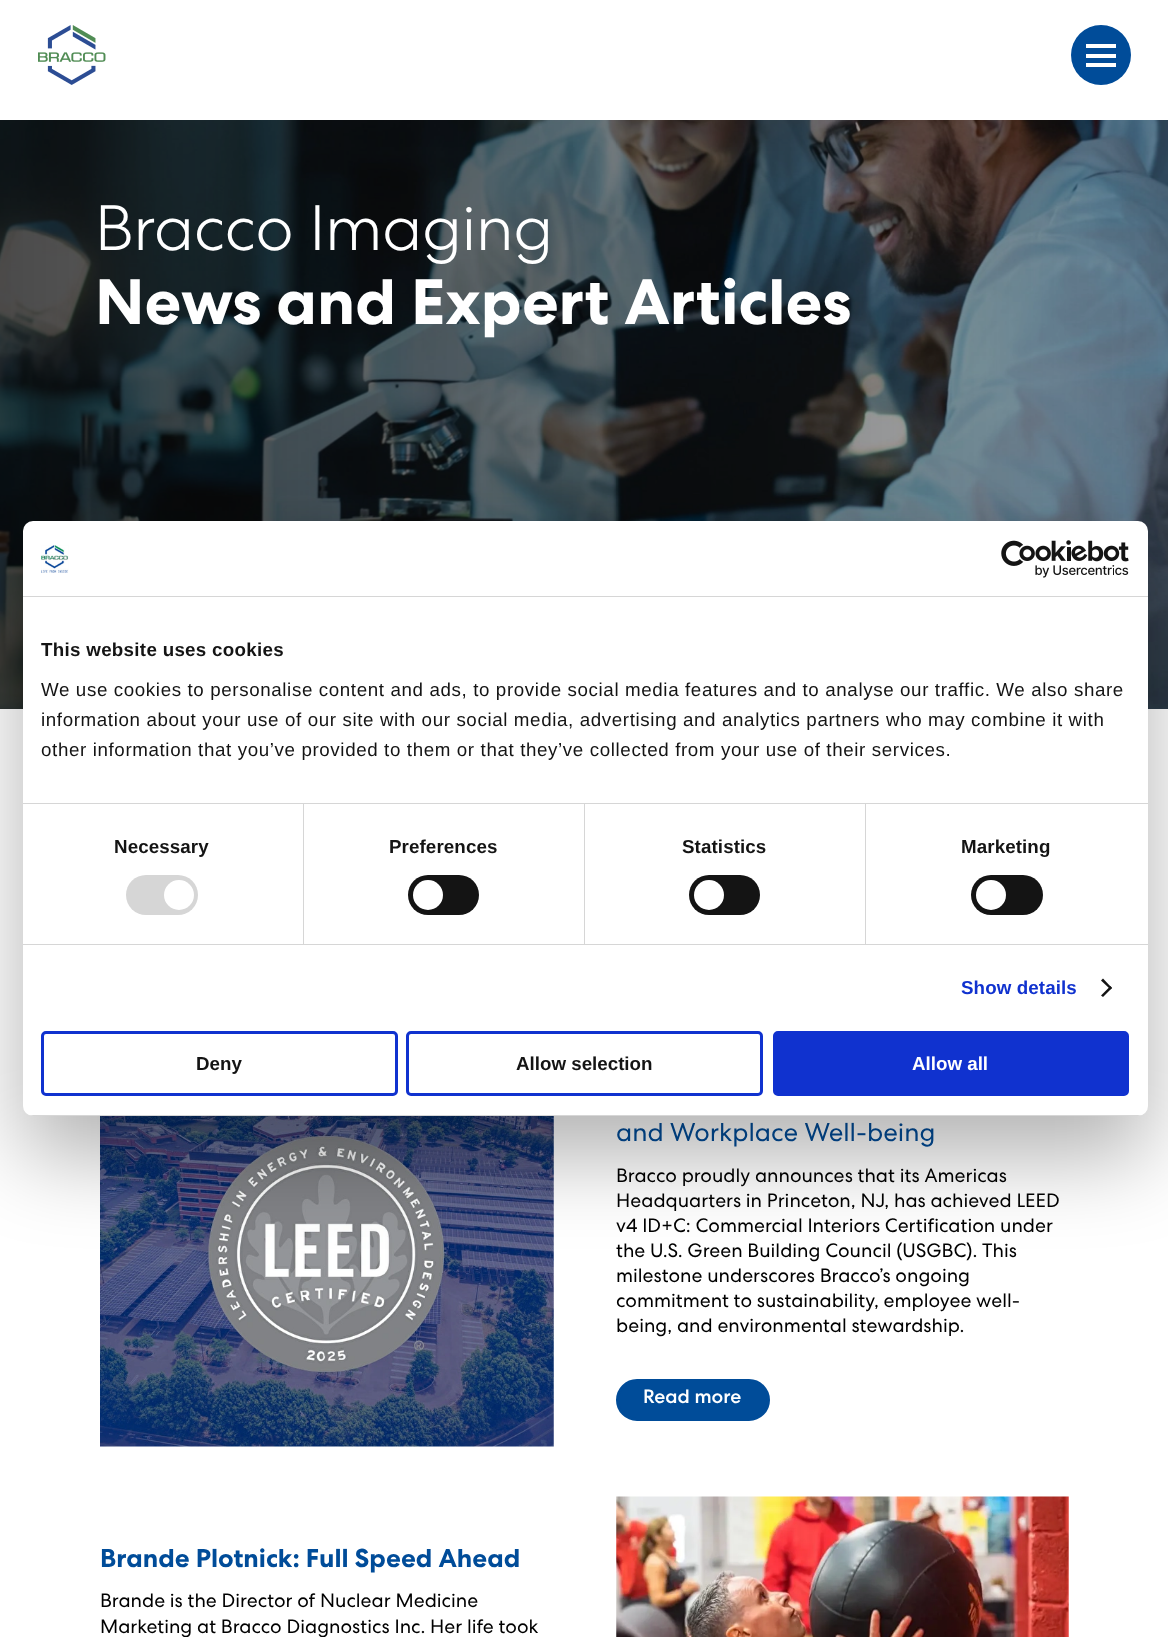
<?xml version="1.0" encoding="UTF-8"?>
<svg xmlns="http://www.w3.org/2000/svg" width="1168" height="1637">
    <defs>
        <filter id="blur1" x="-50%" y="-200%" width="200%" height="500%"><feGaussianBlur stdDeviation="42.5"/></filter>
        <clipPath id="clip1"><rect x="23" y="521" width="1125" height="595" rx="10"/></clipPath>
    </defs>
    <rect width="100%" height="100%" fill="#FFFFFF"/>
    <image x="38" y="25" width="68" height="60" href="img_01.png"/>
    <circle cx="1101" cy="55" r="30" fill="#004C99"/>
    <rect x="1086" y="44" width="30" height="4" fill="#FFFFFF"/>
    <rect x="1086" y="54" width="30" height="4" fill="#FFFFFF"/>
    <rect x="1086" y="63" width="30" height="4" fill="#FFFFFF"/>
    <image x="0" y="120" width="1168" height="589" href="img_02.png"/>
    <text x="95" y="250" font-family="'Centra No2'" font-size="64" font-weight="300" fill="#FFFFFF">Bracco Imaging</text>
    <text x="95" y="324" font-family="'Centra No2'" font-size="64" font-weight="700" fill="#FFFFFF">News and Expert Articles</text>
    <image x="100" y="1116" width="454" height="331" href="img_03.png"/>
    <text x="616" y="1141" font-family="'Centra No2'" font-size="25.9" fill="#004C99">and Workplace Well-being</text>
    <text font-family="'Centra No2'" font-size="19.4" fill="#000000">
        <tspan x="616" y="1182">Bracco proudly announces that its Americas</tspan>
        <tspan x="616" y="1207">Headquarters in Princeton, NJ, has achieved LEED</tspan>
        <tspan x="616" y="1232">v4 ID+C: Commercial Interiors Certification under</tspan>
        <tspan x="616" y="1257">the U.S. Green Building Council (USGBC). This</tspan>
        <tspan x="616" y="1282">milestone underscores Bracco’s ongoing</tspan>
        <tspan x="616" y="1307">commitment to sustainability, employee well-</tspan>
        <tspan x="616" y="1332">being, and environmental stewardship.</tspan>
    </text>
    <rect x="617.5" y="1380.5" width="151" height="39" rx="19.5" fill="#004C99" stroke="#004C99" stroke-width="3"/>
    <text x="643" y="1403" font-family="'Centra No2'" font-size="19.4" font-weight="500" fill="#FFFFFF">Read more</text>
    <text x="100" y="1567" font-family="'Centra No2'" font-size="25.9" font-weight="700" fill="#004C99">Brande Plotnick: Full Speed Ahead</text>
    <text font-family="'Centra No2'" font-size="19.4" fill="#000000">
        <tspan x="100" y="1607">Brande is the Director of Nuclear Medicine</tspan>
        <tspan x="100" y="1633">Marketing at Bracco Diagnostics Inc. Her life took</tspan>
    </text>
    <image x="616" y="1496" width="453" height="141" href="img_04.png"/>
    <rect x="23" y="561" width="1125" height="595" rx="10" fill="#000000" fill-opacity="0.3" filter="url(#blur1)"/>
    <rect x="23" y="521" width="1125" height="595" rx="10" fill="#FFFFFF"/>
    <rect x="23" y="596" width="1125" height="1" fill="#D6D6D6"/>
    <image x="41" y="545" width="28" height="28" href="img_05.png"/>
    <image x="1001" y="540" width="128" height="38" href="img_06.png"/>
    <rect x="23" y="803" width="1125" height="1" fill="#D6D6D6"/>
    <text x="41" y="656" font-family="Liberation Sans" font-size="18.75" font-weight="700" letter-spacing="0.3" fill="#141414">This website uses cookies</text>
    <text font-family="Liberation Sans" font-size="18.75" letter-spacing="0.62" fill="#141414">
        <tspan x="41" y="696">We use cookies to personalise content and ads, to provide social media features and to analyse our traffic. We also share</tspan>
        <tspan x="41" y="726">information about your use of our site with our social media, advertising and analytics partners who may combine it with</tspan>
        <tspan x="41" y="756">other information that you’ve provided to them or that they’ve collected from your use of their services.</tspan>
    </text>
    <rect x="23" y="944" width="1125" height="1" fill="#D6D6D6"/>
    <rect x="303" y="804" width="1" height="140" fill="#D6D6D6"/>
    <text x="114" y="853" font-family="Liberation Sans" font-size="18.75" font-weight="700" letter-spacing="0.1" fill="#141414">Necessary</text>
    <rect x="126" y="875" width="72" height="40" rx="20" fill="#D6D6D6"/>
    <circle cx="179" cy="895" r="15" fill="#FFFFFF"/>
    <rect x="584" y="804" width="1" height="140" fill="#D6D6D6"/>
    <text x="389" y="853" font-family="Liberation Sans" font-size="18.75" font-weight="700" letter-spacing="0.1" fill="#141414">Preferences</text>
    <rect x="408" y="875" width="71" height="40" rx="20" fill="#141414"/>
    <circle cx="428" cy="895" r="15" fill="#FFFFFF"/>
    <rect x="865" y="804" width="1" height="140" fill="#D6D6D6"/>
    <text x="682" y="853" font-family="Liberation Sans" font-size="18.75" font-weight="700" letter-spacing="0.1" fill="#141414">Statistics</text>
    <rect x="689" y="875" width="71" height="40" rx="20" fill="#141414"/>
    <circle cx="709" cy="895" r="15" fill="#FFFFFF"/>
    <text x="961" y="853" font-family="Liberation Sans" font-size="18.75" font-weight="700" letter-spacing="0.1" fill="#141414">Marketing</text>
    <rect x="971" y="875" width="72" height="40" rx="20" fill="#141414"/>
    <circle cx="991" cy="895" r="15" fill="#FFFFFF"/>
    <text x="961" y="994" font-family="Liberation Sans" font-size="18.75" font-weight="700" letter-spacing="0.1" fill="#1032CF">Show details</text>
    <path d="M 1103 978.5 L 1112 988 L 1110.5 989.5 L 1101 980.5 Z" fill="#141414"/>
    <path d="M 1110.5 986 L 1112 988 L 1103 997 L 1101 995.5 Z" fill="#141414"/>
    <g clip-path="url(#clip1)">
        <rect x="23" y="1115" width="1125" height="1" fill="#D6D6D6"/>
    </g>
    <rect x="42.5" y="1032.5" width="354" height="62" rx="3.5" fill="none" stroke="#1032CF" stroke-width="3"/>
    <text x="196" y="1070" font-family="Liberation Sans" font-size="18.75" font-weight="700" fill="#141414">Deny</text>
    <rect x="407.5" y="1032.5" width="354" height="62" rx="3.5" fill="none" stroke="#1032CF" stroke-width="3"/>
    <text x="516" y="1070" font-family="Liberation Sans" font-size="18.75" font-weight="700" fill="#141414">Allow selection</text>
    <rect x="774.5" y="1032.5" width="353" height="62" rx="3.5" fill="#1032CF" stroke="#1032CF" stroke-width="3"/>
    <text x="912" y="1070" font-family="Liberation Sans" font-size="18.75" font-weight="700" fill="#FFFFFF">Allow all</text>
</svg>
